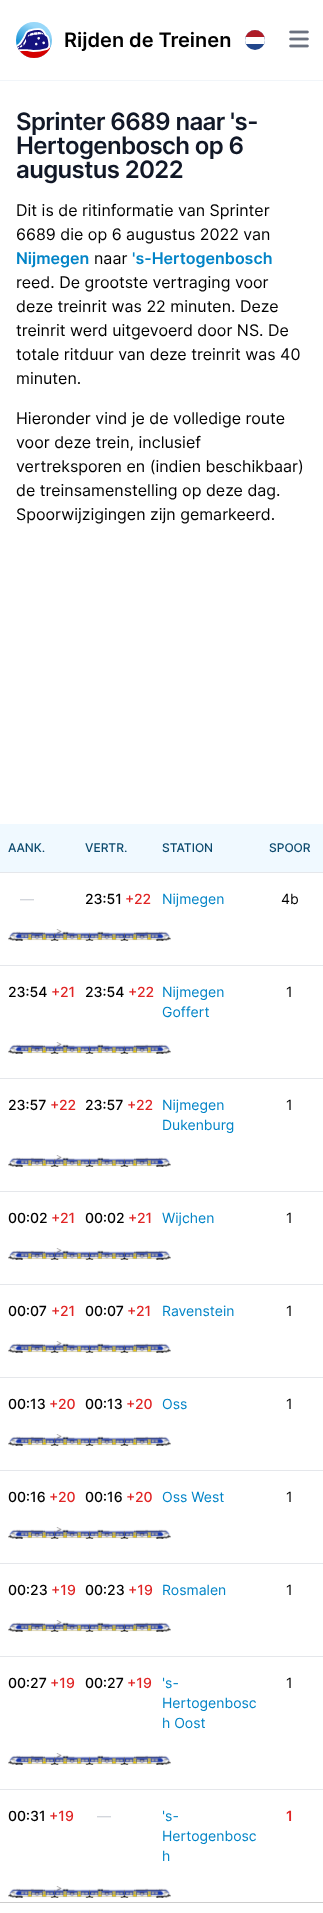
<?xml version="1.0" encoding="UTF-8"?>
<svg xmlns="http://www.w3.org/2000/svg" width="323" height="1913">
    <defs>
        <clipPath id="clip1"><rect x="245" y="30" width="20" height="20" rx="10"/></clipPath>
    </defs>
    <rect width="100%" height="100%" fill="#FFFFFF"/>
    <rect x="0" y="80" width="323" height="1" fill="#F1F5F9"/>
    <image x="16" y="22" width="36" height="36" href="img_01.png"/>
    <text x="64" y="47" font-family="Inter" font-size="20" font-weight="600" fill="#000000">Rijden de Treinen</text>
    <circle cx="255" cy="40" r="10" fill="#21468B"/>
    <g clip-path="url(#clip1)">
        <path d="M 255 30 C 260.5 30 265 34.5 265 40 V 44 H 245 V 40 C 245 34.5 249.5 30 255 30 Z" fill="#FFFFFF"/>
        <rect x="245" y="30" width="20" height="7" fill="#AE1C28"/>
    </g>
    <image x="289" y="30" width="20" height="18" href="img_02.png"/>
    <text font-family="Inter" font-size="24" font-weight="600" letter-spacing="-0.6" fill="#111827">
        <tspan x="16" y="130">Sprinter 6689 naar 's-</tspan>
        <tspan x="16" y="154">Hertogenbosch op 6</tspan>
        <tspan x="16" y="178">augustus 2022</tspan>
    </text>
    <text font-family="Inter" font-size="16" fill="#000000">
        <tspan x="16" y="216">Dit is de ritinformatie van Sprinter</tspan>
        <tspan x="16" y="240">6689 die op 6 augustus 2022 van</tspan>
    </text>
    <text x="16" y="264" font-family="Inter" font-size="16" font-weight="600" fill="#0284C7">Nijmegen</text>
    <text x="94" y="264" font-family="Inter" font-size="16" fill="#000000">naar</text>
    <text x="132" y="264" font-family="Inter" font-size="16" font-weight="600" fill="#0284C7">'s-Hertogenbosch</text>
    <text font-family="Inter" font-size="16" fill="#000000">
        <tspan x="16" y="288">reed. De grootste vertraging voor</tspan>
        <tspan x="16" y="312">deze treinrit was 22 minuten. Deze</tspan>
        <tspan x="16" y="336">treinrit werd uitgevoerd door NS. De</tspan>
        <tspan x="16" y="360">totale ritduur van deze treinrit was 40</tspan>
        <tspan x="16" y="384">minuten.</tspan>
    </text>
    <text font-family="Inter" font-size="16" fill="#000000">
        <tspan x="16" y="424">Hieronder vind je de volledige route</tspan>
        <tspan x="16" y="448">voor deze trein, inclusief</tspan>
        <tspan x="16" y="472">vertreksporen en (indien beschikbaar)</tspan>
        <tspan x="16" y="496">de treinsamenstelling op deze dag.</tspan>
        <tspan x="16" y="520">Spoorwijzigingen zijn gemarkeerd.</tspan>
    </text>
    <rect x="0" y="824" width="323" height="48" fill="#F0F9FF"/>
    <rect x="0" y="872" width="323" height="1" fill="#E5E7EB"/>
    <text x="8" y="852" font-family="Inter" font-size="12" font-weight="500" fill="#0C4A6E">AANK.</text>
    <text x="85" y="852" font-family="Inter" font-size="12" font-weight="500" fill="#0C4A6E">VERTR.</text>
    <text x="162" y="852" font-family="Inter" font-size="12" font-weight="500" fill="#0C4A6E">STATION</text>
    <text x="269" y="852" font-family="Inter" font-size="12" font-weight="500" fill="#0C4A6E">SPOOR</text>
    <rect x="0" y="965" width="323" height="1" fill="#E5E7EB"/>
    <text x="20" y="904" font-family="Inter" font-size="14" font-weight="500" fill="#D1D5DB">—</text>
    <text x="85" y="904" font-family="Inter" font-size="14" font-weight="500" fill="#000000">23:51</text>
    <text x="125" y="904" font-family="Inter" font-size="14" font-weight="500" fill="#E02424">+22</text>
    <text x="162" y="904" font-family="Inter" font-size="14" fill="#0284C7">Nijmegen</text>
    <text x="281" y="904" font-family="Inter" font-size="14" fill="#000000">4b</text>
    <image x="8" y="929" width="163" height="12" href="img_03.png"/>
    <rect x="0" y="1078" width="323" height="1" fill="#E5E7EB"/>
    <text x="8" y="997" font-family="Inter" font-size="14" font-weight="500" fill="#000000">23:54</text>
    <text x="51" y="997" font-family="Inter" font-size="14" font-weight="500" fill="#E02424">+21</text>
    <text x="85" y="997" font-family="Inter" font-size="14" font-weight="500" fill="#000000">23:54</text>
    <text x="128" y="997" font-family="Inter" font-size="14" font-weight="500" fill="#E02424">+22</text>
    <text font-family="Inter" font-size="14" fill="#0284C7">
        <tspan x="162" y="997">Nijmegen</tspan>
        <tspan x="162" y="1017">Goffert</tspan>
    </text>
    <text x="286" y="997" font-family="Inter" font-size="14" fill="#000000">1</text>
    <image x="8" y="1042" width="163" height="12" href="img_03.png"/>
    <rect x="0" y="1191" width="323" height="1" fill="#E5E7EB"/>
    <text x="8" y="1110" font-family="Inter" font-size="14" font-weight="500" fill="#000000">23:57</text>
    <text x="50" y="1110" font-family="Inter" font-size="14" font-weight="500" fill="#E02424">+22</text>
    <text x="85" y="1110" font-family="Inter" font-size="14" font-weight="500" fill="#000000">23:57</text>
    <text x="127" y="1110" font-family="Inter" font-size="14" font-weight="500" fill="#E02424">+22</text>
    <text font-family="Inter" font-size="14" fill="#0284C7">
        <tspan x="162" y="1110">Nijmegen</tspan>
        <tspan x="162" y="1130">Dukenburg</tspan>
    </text>
    <text x="286" y="1110" font-family="Inter" font-size="14" fill="#000000">1</text>
    <image x="8" y="1155" width="163" height="12" href="img_03.png"/>
    <rect x="0" y="1284" width="323" height="1" fill="#E5E7EB"/>
    <text x="8" y="1223" font-family="Inter" font-size="14" font-weight="500" fill="#000000">00:02</text>
    <text x="51" y="1223" font-family="Inter" font-size="14" font-weight="500" fill="#E02424">+21</text>
    <text x="85" y="1223" font-family="Inter" font-size="14" font-weight="500" fill="#000000">00:02</text>
    <text x="128" y="1223" font-family="Inter" font-size="14" font-weight="500" fill="#E02424">+21</text>
    <text x="162" y="1223" font-family="Inter" font-size="14" fill="#0284C7">Wijchen</text>
    <text x="286" y="1223" font-family="Inter" font-size="14" fill="#000000">1</text>
    <image x="8" y="1248" width="163" height="12" href="img_03.png"/>
    <rect x="0" y="1377" width="323" height="1" fill="#E5E7EB"/>
    <text x="8" y="1316" font-family="Inter" font-size="14" font-weight="500" fill="#000000">00:07</text>
    <text x="51" y="1316" font-family="Inter" font-size="14" font-weight="500" fill="#E02424">+21</text>
    <text x="85" y="1316" font-family="Inter" font-size="14" font-weight="500" fill="#000000">00:07</text>
    <text x="127" y="1316" font-family="Inter" font-size="14" font-weight="500" fill="#E02424">+21</text>
    <text x="162" y="1316" font-family="Inter" font-size="14" fill="#0284C7">Ravenstein</text>
    <text x="286" y="1316" font-family="Inter" font-size="14" fill="#000000">1</text>
    <image x="8" y="1341" width="163" height="12" href="img_03.png"/>
    <rect x="0" y="1470" width="323" height="1" fill="#E5E7EB"/>
    <text x="8" y="1409" font-family="Inter" font-size="14" font-weight="500" fill="#000000">00:13</text>
    <text x="49" y="1409" font-family="Inter" font-size="14" font-weight="500" fill="#E02424">+20</text>
    <text x="85" y="1409" font-family="Inter" font-size="14" font-weight="500" fill="#000000">00:13</text>
    <text x="126" y="1409" font-family="Inter" font-size="14" font-weight="500" fill="#E02424">+20</text>
    <text x="162" y="1409" font-family="Inter" font-size="14" fill="#0284C7">Oss</text>
    <text x="286" y="1409" font-family="Inter" font-size="14" fill="#000000">1</text>
    <image x="8" y="1434" width="163" height="12" href="img_03.png"/>
    <rect x="0" y="1563" width="323" height="1" fill="#E5E7EB"/>
    <text x="8" y="1502" font-family="Inter" font-size="14" font-weight="500" fill="#000000">00:16</text>
    <text x="49" y="1502" font-family="Inter" font-size="14" font-weight="500" fill="#E02424">+20</text>
    <text x="85" y="1502" font-family="Inter" font-size="14" font-weight="500" fill="#000000">00:16</text>
    <text x="126" y="1502" font-family="Inter" font-size="14" font-weight="500" fill="#E02424">+20</text>
    <text x="162" y="1502" font-family="Inter" font-size="14" fill="#0284C7">Oss West</text>
    <text x="286" y="1502" font-family="Inter" font-size="14" fill="#000000">1</text>
    <image x="8" y="1527" width="163" height="12" href="img_03.png"/>
    <rect x="0" y="1656" width="323" height="1" fill="#E5E7EB"/>
    <text x="8" y="1595" font-family="Inter" font-size="14" font-weight="500" fill="#000000">00:23</text>
    <text x="51" y="1595" font-family="Inter" font-size="14" font-weight="500" fill="#E02424">+19</text>
    <text x="85" y="1595" font-family="Inter" font-size="14" font-weight="500" fill="#000000">00:23</text>
    <text x="128" y="1595" font-family="Inter" font-size="14" font-weight="500" fill="#E02424">+19</text>
    <text x="162" y="1595" font-family="Inter" font-size="14" fill="#0284C7">Rosmalen</text>
    <text x="286" y="1595" font-family="Inter" font-size="14" fill="#000000">1</text>
    <image x="8" y="1620" width="163" height="12" href="img_03.png"/>
    <rect x="0" y="1789" width="323" height="1" fill="#E5E7EB"/>
    <text x="8" y="1688" font-family="Inter" font-size="14" font-weight="500" fill="#000000">00:27</text>
    <text x="50" y="1688" font-family="Inter" font-size="14" font-weight="500" fill="#E02424">+19</text>
    <text x="85" y="1688" font-family="Inter" font-size="14" font-weight="500" fill="#000000">00:27</text>
    <text x="127" y="1688" font-family="Inter" font-size="14" font-weight="500" fill="#E02424">+19</text>
    <text font-family="Inter" font-size="14" fill="#0284C7">
        <tspan x="162" y="1688">'s-</tspan>
        <tspan x="162" y="1708">Hertogenbosc</tspan>
        <tspan x="162" y="1728">h Oost</tspan>
    </text>
    <text x="286" y="1688" font-family="Inter" font-size="14" fill="#000000">1</text>
    <image x="8" y="1753" width="163" height="12" href="img_03.png"/>
    <text x="8" y="1821" font-family="Inter" font-size="14" font-weight="500" fill="#000000">00:31</text>
    <text x="49" y="1821" font-family="Inter" font-size="14" font-weight="500" fill="#E02424">+19</text>
    <text x="97" y="1821" font-family="Inter" font-size="14" font-weight="500" fill="#D1D5DB">—</text>
    <text font-family="Inter" font-size="14" fill="#0284C7">
        <tspan x="162" y="1821">'s-</tspan>
        <tspan x="162" y="1841">Hertogenbosc</tspan>
        <tspan x="162" y="1861">h</tspan>
    </text>
    <text x="286" y="1821" font-family="Inter" font-size="14" font-weight="600" fill="#E02424">1</text>
    <image x="8" y="1886" width="163" height="12" href="img_03.png"/>
    <rect x="0" y="1902" width="323" height="1" fill="#CCCCCC"/>
</svg>
